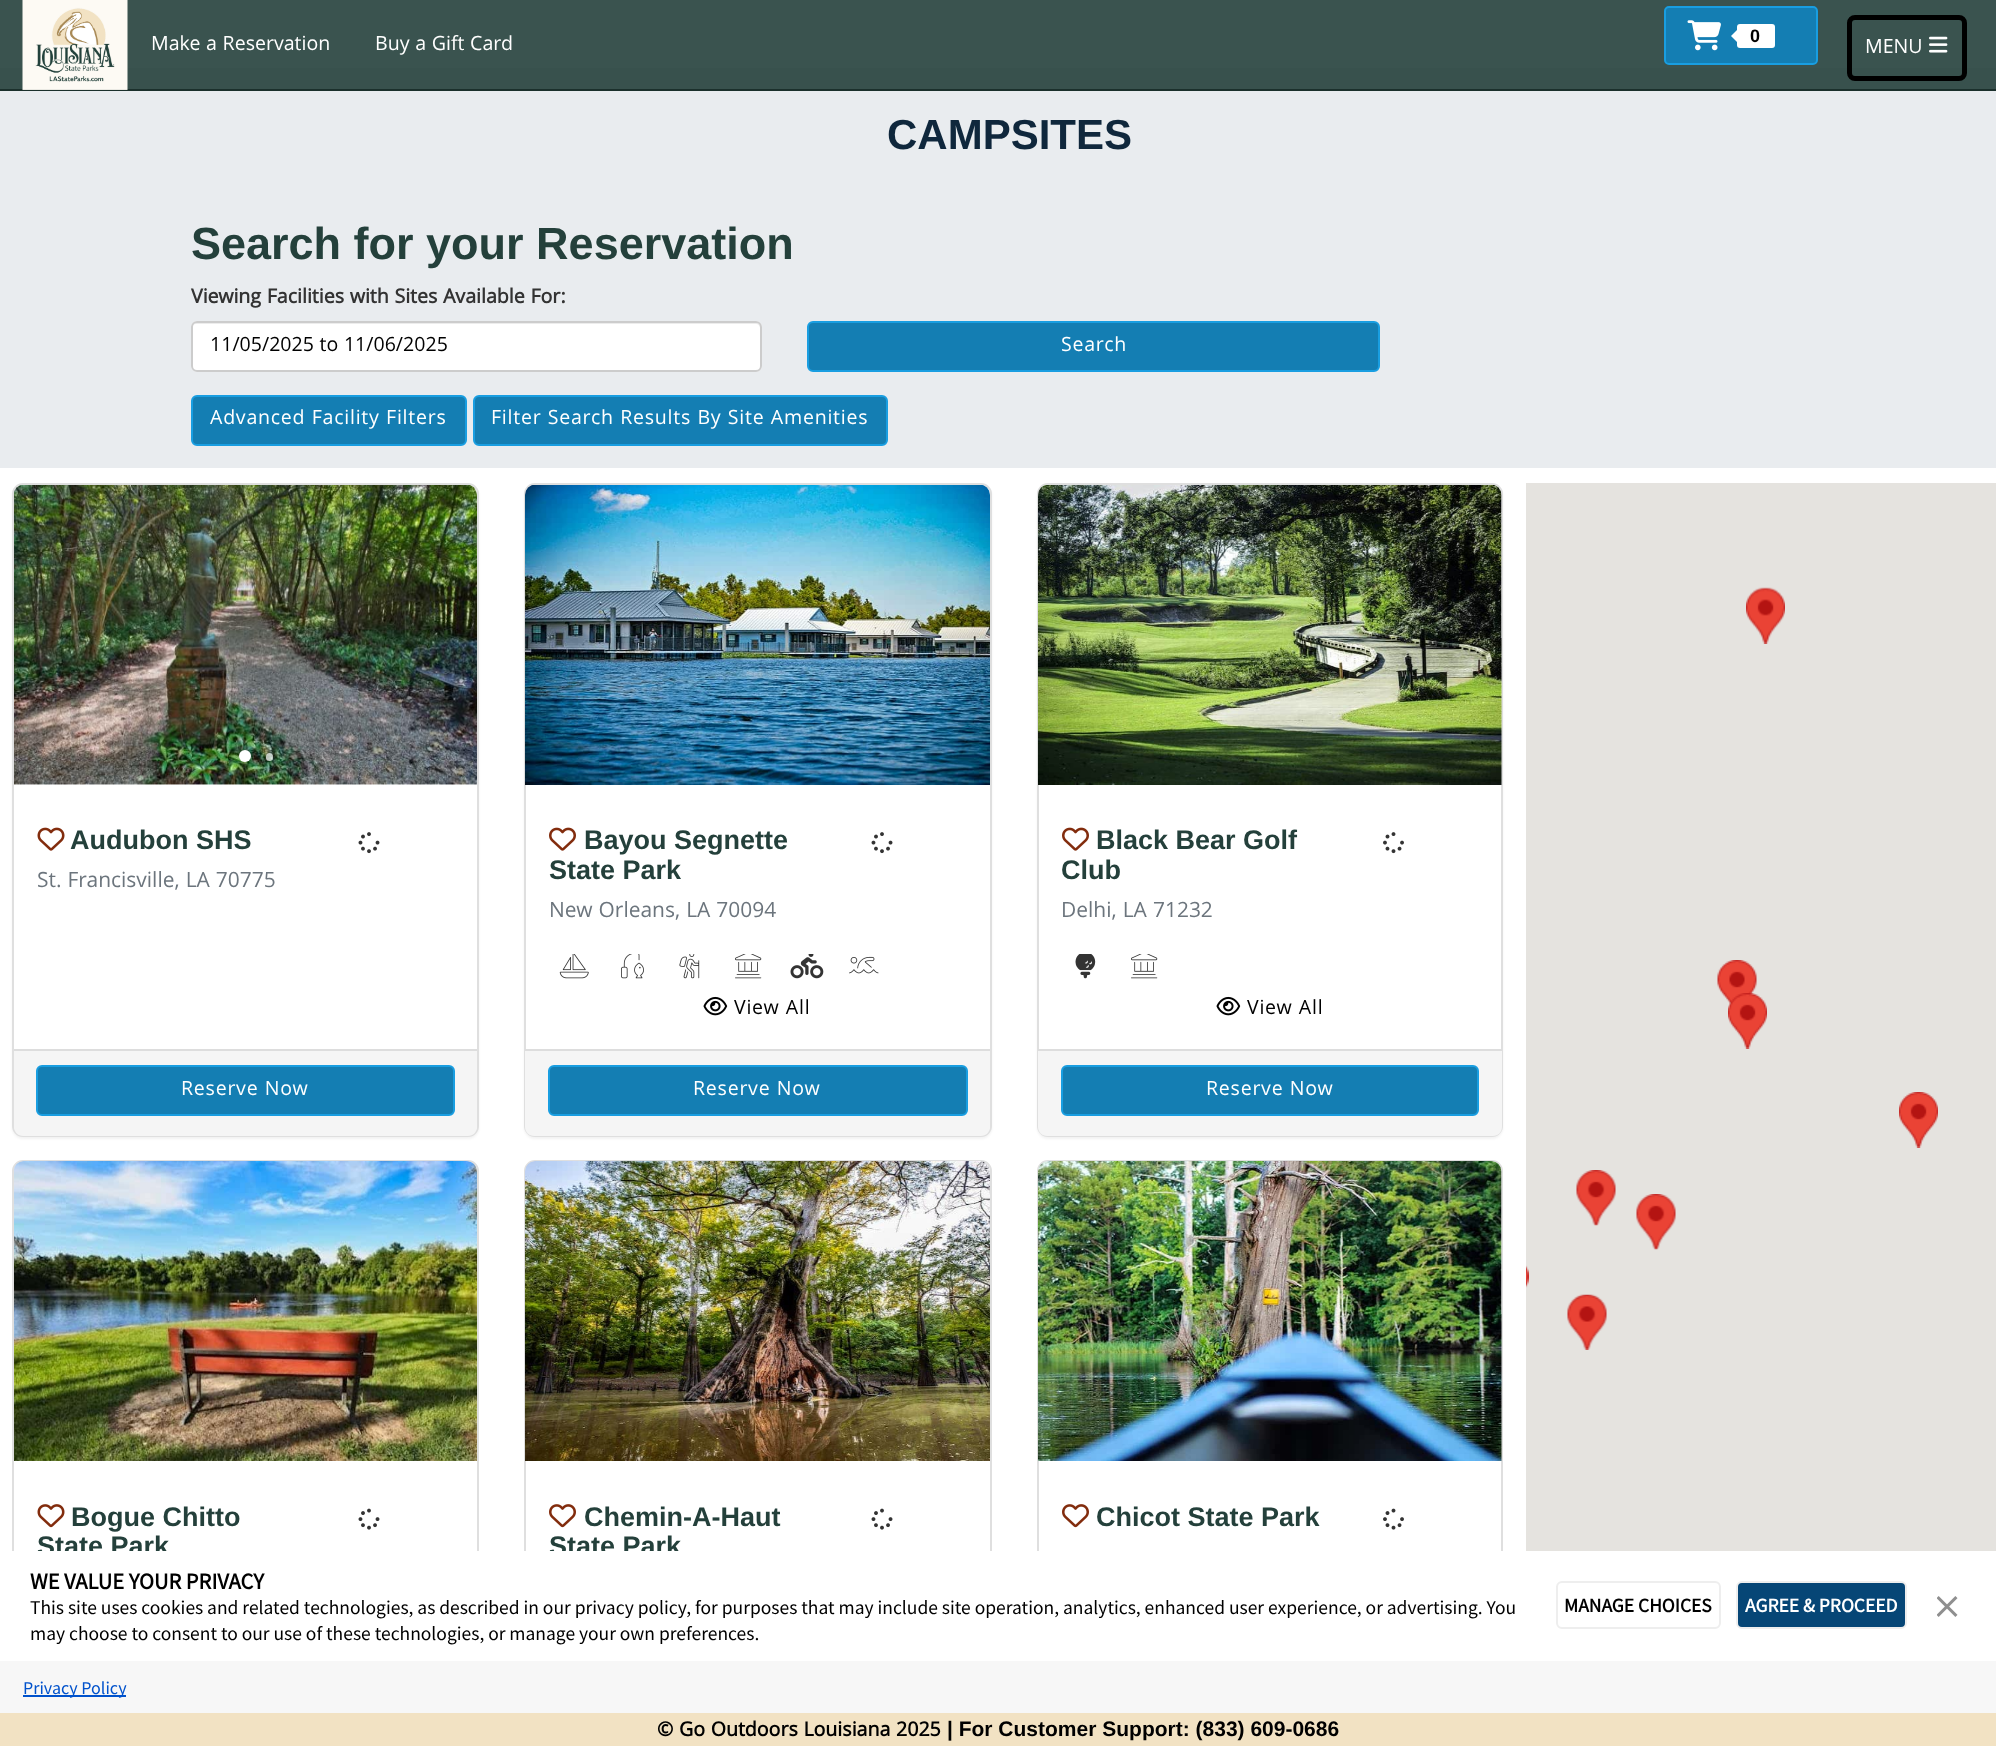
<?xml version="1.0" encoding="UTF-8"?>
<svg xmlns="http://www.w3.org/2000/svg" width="1996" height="1746">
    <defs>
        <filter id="blur1" x="-50%" y="-200%" width="200%" height="500%"><feGaussianBlur stdDeviation="1"/></filter>
    </defs>
    <rect width="100%" height="100%" fill="#FFFFFF"/>
    <rect x="0" y="0" width="1996" height="68" fill="#3A534F"/>
    <rect x="0" y="89" width="1996" height="2" fill="#1B302C"/>
    <rect x="0" y="68" width="1996" height="21" fill="#38514D"/>
    <image x="22" y="0" width="106" height="90" href="img_01.png"/>
    <text x="151" y="50" font-family="Khula" font-size="21" fill="#FFFFFF">Make a Reservation</text>
    <text x="375" y="50" font-family="Khula" font-size="21" fill="#FFFFFF">Buy a Gift Card</text>
    <rect x="1665" y="7" width="152" height="57" rx="4" fill="#147EB3" stroke="#199EE1" stroke-width="2"/>
    <image x="1687" y="20" width="34" height="31" href="img_02.png"/>
    <rect x="1737" y="24" width="38" height="24" rx="3" fill="#FFFFFF"/>
    <path d="M 1738.5 28.5 V 43.5 L 1731 36 Z" fill="#FFFFFF"/>
    <text x="1750" y="42" font-family="Liberation Sans" font-size="18" font-weight="700" letter-spacing="0.75" fill="#000000">0</text>
    <rect x="1849.5" y="17.5" width="115" height="61" rx="5.5" fill="none" stroke="#000000" stroke-width="5"/>
    <text x="1865" y="53" font-family="Khula" font-size="21" fill="#FFFFFF">MENU</text>
    <image x="1929" y="36" width="19" height="17" href="img_03.png"/>
    <rect x="0" y="91" width="1996" height="377" fill="#E9ECEF"/>
    <text x="887" y="149" font-family="Liberation Sans" font-size="42" font-weight="700" fill="#0F273C">CAMPSITES</text>
    <text x="191" y="259" font-family="Liberation Sans" font-size="45" font-weight="700" fill="#24403B">Search for your Reservation</text>
    <text x="191" y="303" font-family="Khula" font-size="21" font-weight="700" fill="#333333">Viewing Facilities with Sites Available For:</text>
    <rect x="191" y="321" width="571" height="51" rx="6" fill="#FFFFFF"/>
    <path d="M 196 324 H 756 C 758 324 760 326 760 328 V 369 C 761 368 761 367 761 366 V 328 C 761 325 759 323 756 323 H 197 C 194 323 192 325 192 328 C 192 326 194 324 196 324 Z" fill="#ECECEC"/>
    <rect x="192" y="322" width="569" height="49" rx="5" fill="none" stroke="#CCCCCC" stroke-width="2"/>
    <text x="210" y="351" font-family="Khula" font-size="21" fill="#000000">11/05/2025 to 11/06/2025</text>
    <rect x="808" y="322" width="571" height="49" rx="5" fill="#147EB3" stroke="#199EE1" stroke-width="2"/>
    <text x="1061" y="351" font-family="Khula" font-size="21" letter-spacing="0.75" fill="#FFFFFF">Search</text>
    <rect x="192" y="396" width="274" height="49" rx="5" fill="#147EB3" stroke="#199EE1" stroke-width="2"/>
    <text x="210" y="424" font-family="Khula" font-size="21" letter-spacing="0.75" fill="#FFFFFF">Advanced Facility Filters</text>
    <rect x="474" y="396" width="413" height="49" rx="5" fill="#147EB3" stroke="#199EE1" stroke-width="2"/>
    <text x="491" y="424" font-family="Khula" font-size="21" letter-spacing="0.75" fill="#FFFFFF">Filter Search Results By Site Amenities</text>
    <rect x="12" y="485" width="467" height="654" rx="11" fill="#000000" fill-opacity="0.05" filter="url(#blur1)"/>
    <rect x="13" y="484" width="465" height="652" rx="10" fill="#FFFFFF" stroke="#DFDFDF" stroke-width="2"/>
    <image x="14" y="485" width="463" height="300" href="img_04.png"/>
    <circle cx="245" cy="756" r="6" fill="#FFFFFF"/>
    <rect x="266" y="753" width="7" height="8" rx="3.5" fill="#FFFFFF" fill-opacity="0.7"/>
    <image x="37" y="827" width="28" height="24" href="img_05.png"/>
    <text x="70" y="849" font-family="Liberation Sans" font-size="27" font-weight="700" fill="#24403B">Audubon SHS</text>
    <text x="37" y="887" font-family="Khula" font-size="22.5" fill="#6C757D">St. Francisville, LA 70775</text>
    <image x="358" y="832" width="22" height="22" href="img_06.png"/>
    <path d="M 14 1049 H 477 V 1127 C 477 1132 473 1136 468 1136 H 23 C 18 1136 14 1132 14 1127 Z" fill="#F5F5F5"/>
    <rect x="14" y="1049" width="463" height="2" fill="#DDDDDD"/>
    <rect x="37" y="1066" width="417" height="49" rx="5" fill="#147EB3" stroke="#199EE1" stroke-width="2"/>
    <text x="181" y="1095" font-family="Khula" font-size="21" letter-spacing="0.75" fill="#FFFFFF">Reserve Now</text>
    <rect x="524" y="485" width="468" height="654" rx="11" fill="#000000" fill-opacity="0.05" filter="url(#blur1)"/>
    <rect x="525" y="484" width="466" height="652" rx="10" fill="#FFFFFF" stroke="#DFDFDF" stroke-width="2"/>
    <image x="525" y="485" width="465" height="300" href="img_07.png"/>
    <image x="549" y="827" width="27" height="24" href="img_08.png"/>
    <text x="584" y="849" font-family="Liberation Sans" font-size="27" font-weight="700" fill="#24403B">Bayou Segnette</text>
    <text x="549" y="879" font-family="Liberation Sans" font-size="27" font-weight="700" fill="#24403B">State Park</text>
    <text x="549" y="917" font-family="Khula" font-size="22.5" fill="#6C757D">New Orleans, LA 70094</text>
    <image x="871" y="832" width="22" height="22" href="img_06.png"/>
    <image x="559" y="954" width="30" height="25" href="img_09.png"/>
    <image x="621" y="954" width="23" height="25" href="img_10.png"/>
    <image x="679" y="954" width="21" height="25" href="img_11.png"/>
    <image x="735" y="954" width="27" height="25" href="img_12.png"/>
    <image x="790" y="954" width="34" height="25" href="img_13.png"/>
    <image x="849" y="956" width="30" height="18" href="img_14.png"/>
    <image x="703" y="996" width="25" height="20" href="img_15.png"/>
    <text x="734" y="1014" font-family="Khula" font-size="21" letter-spacing="0.75" fill="#000000">View All</text>
    <path d="M 525 1049 H 990 V 1127 C 990 1132 986 1136 981 1136 H 534 C 529 1136 525 1132 525 1127 Z" fill="#F5F5F5"/>
    <rect x="525" y="1049" width="465" height="2" fill="#DDDDDD"/>
    <rect x="549" y="1066" width="418" height="49" rx="5" fill="#147EB3" stroke="#199EE1" stroke-width="2"/>
    <text x="693" y="1095" font-family="Khula" font-size="21" letter-spacing="0.75" fill="#FFFFFF">Reserve Now</text>
    <rect x="1037" y="485" width="466" height="654" rx="11" fill="#000000" fill-opacity="0.05" filter="url(#blur1)"/>
    <rect x="1038" y="484" width="464" height="652" rx="10" fill="#FFFFFF" stroke="#DFDFDF" stroke-width="2"/>
    <image x="1038" y="485" width="464" height="300" href="img_16.png"/>
    <image x="1062" y="827" width="27" height="24" href="img_08.png"/>
    <text x="1096" y="849" font-family="Liberation Sans" font-size="27" font-weight="700" fill="#24403B">Black Bear Golf</text>
    <text x="1061" y="879" font-family="Liberation Sans" font-size="27" font-weight="700" fill="#24403B">Club</text>
    <text x="1061" y="917" font-family="Khula" font-size="22.5" fill="#6C757D">Delhi, LA 71232</text>
    <image x="1383" y="832" width="21" height="22" href="img_17.png"/>
    <image x="1075" y="954" width="21" height="25" href="img_18.png"/>
    <image x="1131" y="954" width="27" height="25" href="img_12.png"/>
    <image x="1216" y="996" width="25" height="20" href="img_15.png"/>
    <text x="1247" y="1014" font-family="Khula" font-size="21" letter-spacing="0.75" fill="#000000">View All</text>
    <path d="M 1038 1049 H 1502 V 1127 C 1502 1132 1498 1136 1493 1136 H 1047 C 1042 1136 1038 1132 1038 1127 Z" fill="#F5F5F5"/>
    <rect x="1038" y="1049" width="464" height="2" fill="#DDDDDD"/>
    <rect x="1062" y="1066" width="416" height="49" rx="5" fill="#147EB3" stroke="#199EE1" stroke-width="2"/>
    <text x="1206" y="1095" font-family="Khula" font-size="21" letter-spacing="0.75" fill="#FFFFFF">Reserve Now</text>
    <rect x="13" y="1161" width="465" height="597" rx="10" fill="none" stroke="#DFDFDF" stroke-width="2"/>
    <image x="14" y="1161" width="463" height="300" href="img_19.png"/>
    <image x="37" y="1504" width="28" height="24" href="img_20.png"/>
    <text x="71" y="1526" font-family="Liberation Sans" font-size="27" font-weight="700" fill="#24403B">Bogue Chitto</text>
    <text x="37" y="1555" font-family="Liberation Sans" font-size="27" font-weight="700" fill="#24403B">State Park</text>
    <image x="358" y="1508" width="22" height="22" href="img_21.png"/>
    <rect x="525" y="1161" width="466" height="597" rx="10" fill="none" stroke="#DFDFDF" stroke-width="2"/>
    <image x="525" y="1161" width="465" height="300" href="img_22.png"/>
    <image x="549" y="1504" width="27" height="24" href="img_23.png"/>
    <text x="584" y="1526" font-family="Liberation Sans" font-size="27" font-weight="700" fill="#24403B">Chemin-A-Haut</text>
    <text x="549" y="1555" font-family="Liberation Sans" font-size="27" font-weight="700" fill="#24403B">State Park</text>
    <image x="871" y="1508" width="22" height="22" href="img_21.png"/>
    <rect x="1038" y="1161" width="464" height="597" rx="10" fill="none" stroke="#DFDFDF" stroke-width="2"/>
    <image x="1038" y="1161" width="464" height="300" href="img_24.png"/>
    <image x="1062" y="1504" width="27" height="24" href="img_23.png"/>
    <text x="1096" y="1526" font-family="Liberation Sans" font-size="27" font-weight="700" fill="#24403B">Chicot State Park</text>
    <image x="1383" y="1508" width="21" height="22" href="img_25.png"/>
    <rect x="1526" y="483" width="470" height="1068" fill="#E5E3DF"/>
    <image x="1746" y="587" width="39" height="57" href="img_26.png"/>
    <image x="1717" y="960" width="40" height="46" href="img_27.png"/>
    <image x="1728" y="993" width="39" height="56" href="img_28.png"/>
    <image x="1899" y="1092" width="39" height="56" href="img_29.png"/>
    <image x="1576" y="1170" width="40" height="56" href="img_30.png"/>
    <image x="1636" y="1194" width="40" height="56" href="img_31.png"/>
    <image x="1526" y="1265" width="3" height="23" href="img_32.png"/>
    <image x="1567" y="1294" width="40" height="56" href="img_33.png"/>
    <rect x="12" y="1551" width="1491" height="110" fill="#FFFFFF"/>
    <text x="30" y="1589" font-family="Source Sans Pro" font-size="22.5" font-weight="700" fill="#000000">WE VALUE YOUR PRIVACY</text>
    <text font-family="Source Sans Pro" font-size="19.5" fill="#000000">
        <tspan x="30" y="1614">This site uses cookies and related technologies, as described in our privacy policy, for purposes that may include site operation, analytics, enhanced user experience, or advertising. You</tspan>
        <tspan x="30" y="1640">may choose to consent to our use of these technologies, or manage your own preferences.</tspan>
    </text>
    <rect x="1557" y="1582" width="163" height="46" rx="5" fill="none" stroke="#EEEEEE" stroke-width="2"/>
    <text x="1564" y="1612" font-family="Source Sans Pro" font-size="19.5" font-weight="700" fill="#000000">MANAGE CHOICES</text>
    <rect x="1737" y="1582" width="169" height="46" rx="5" fill="#064676" stroke="#EEEEEE" stroke-width="2"/>
    <text x="1745" y="1612" font-family="Source Sans Pro" font-size="19.5" font-weight="700" fill="#FFFFFF">AGREE &amp; PROCEED</text>
    <image x="1937" y="1596" width="21" height="21" href="img_34.png"/>
    <rect x="0" y="1661" width="1996" height="52" fill="#F7F7F7"/>
    <rect x="23" y="1695" width="103" height="2" fill="#0052CC"/>
    <text x="23" y="1694" font-family="Source Sans Pro" font-size="18" fill="#0052CC">Privacy Policy</text>
    <rect x="0" y="1713" width="1996" height="33" fill="#F2E2C3"/>
    <text x="657" y="1736" font-family="Khula" font-size="21" font-weight="700" fill="#000000">© Go Outdoors Louisiana 2025</text>
    <text x="947" y="1736" font-family="Liberation Sans" font-size="21" font-weight="700" fill="#000000">| For Customer Support: (833) 609-0686</text>
</svg>
